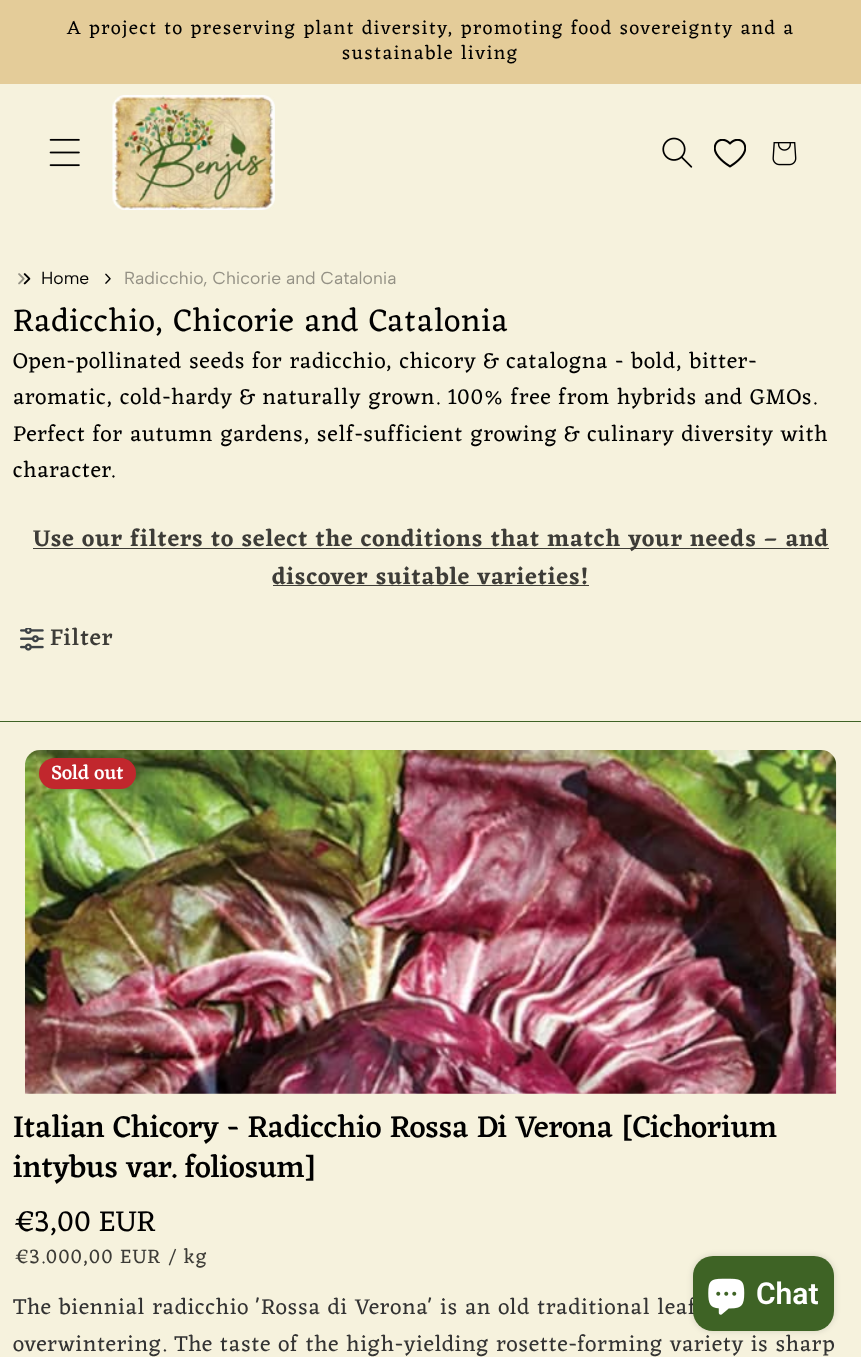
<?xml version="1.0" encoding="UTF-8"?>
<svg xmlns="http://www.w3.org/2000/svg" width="861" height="1357">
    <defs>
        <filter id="blur1" x="-50%" y="-200%" width="200%" height="500%"><feGaussianBlur stdDeviation="3"/></filter>
    </defs>
    <rect width="100%" height="100%" fill="#F6F2DD"/>
    <rect x="0" y="0" width="861" height="84" fill="#E4CC99"/>
    <text x="67" y="34" font-family="Eczar" font-size="19.5" letter-spacing="1.62" fill="#000000">A project to preserving plant diversity, promoting food sovereignty and a</text>
    <text x="342" y="59" font-family="Eczar" font-size="19.5" letter-spacing="1.62" fill="#000000">sustainable living</text>
    <image x="49" y="138" width="31" height="29" href="img_01.png"/>
    <image x="112" y="95" width="163" height="115" href="img_02.png"/>
    <image x="662" y="137" width="31" height="31" href="img_03.png"/>
    <image x="714" y="139" width="32" height="29" href="img_04.png"/>
    <image x="772" y="142" width="25" height="24" href="img_05.png"/>
    <image x="18" y="273" width="13" height="12" href="img_06.png"/>
    <text x="41" y="284" font-family="Albert Sans" font-size="17.5" fill="#000000">Home</text>
    <image x="105" y="273" width="6" height="11" href="img_07.png"/>
    <text x="124" y="284" font-family="Albert Sans" font-size="17.5" fill="#949185">Radicchio, Chicorie and Catalonia</text>
    <text x="13" y="331" font-family="Eczar" font-size="32.5" letter-spacing="0.98" fill="#000000">Radicchio, Chicorie and Catalonia</text>
    <text font-family="Eczar" font-size="22.5" letter-spacing="0.98" fill="#000000">
        <tspan x="13" y="368">Open-pollinated seeds for radicchio, chicory &amp; catalogna - bold, bitter-</tspan>
        <tspan x="13" y="404">aromatic, cold-hardy &amp; naturally grown. 100% free from hybrids and GMOs.</tspan>
        <tspan x="13" y="441">Perfect for autumn gardens, self-sufficient growing &amp; culinary diversity with</tspan>
        <tspan x="13" y="477">character.</tspan>
    </text>
    <rect x="33" y="548" width="796" height="1" fill="#3E3D37"/>
    <text x="33" y="546" font-family="Eczar" font-size="23.75" font-weight="600" letter-spacing="0.98" fill="#3D3C37">Use our filters to select the conditions that match your needs – and</text>
    <text x="272" y="584" font-family="Eczar" font-size="23.75" font-weight="600" letter-spacing="0.98" fill="#3D3C37">discover suitable varieties!</text>
    <rect x="273" y="585" width="316" height="1" fill="#3E3D37"/>
    <image x="20" y="628" width="24" height="23" href="img_08.png"/>
    <text x="50" y="645" font-family="Eczar" font-size="23.75" font-weight="500" letter-spacing="0.98" fill="#3D3C37">Filter</text>
    <rect x="0" y="721" width="861" height="1" fill="#3E6325"/>
    <image x="25" y="750" width="812" height="344" href="img_09.png"/>
    <rect x="39" y="758" width="97" height="31" rx="15.5" fill="#C1272D"/>
    <text x="51" y="779" font-family="Eczar" font-size="20" font-weight="500" fill="#FFFFFF">Sold out</text>
    <text font-family="Eczar" font-size="31.25" font-weight="500" fill="#000000">
        <tspan x="13" y="1137">Italian Chicory - Radicchio Rossa Di Verona [Cichorium</tspan>
        <tspan x="13" y="1177">intybus var. foliosum]</tspan>
    </text>
    <text x="16" y="1231" font-family="Eczar" font-size="30" fill="#000000">€3,00 EUR</text>
    <text x="16" y="1263" font-family="Eczar" font-size="20.25" letter-spacing="0.98" fill="#3D3C37">€3.000,00 EUR</text>
    <text x="168" y="1263" font-family="Eczar" font-size="20.25" letter-spacing="0.98" fill="#3D3C37">/ kg</text>
    <text font-family="Eczar" font-size="22.5" letter-spacing="0.98" fill="#333333">
        <tspan x="13" y="1314">The biennial radicchio 'Rossa di Verona' is an old traditional leaf</tspan>
        <tspan x="13" y="1351">overwintering. The taste of the high-yielding rosette-forming variety is sharp</tspan>
    </text>
    <rect x="693" y="1256" width="141" height="75" rx="20" fill="#000000" fill-opacity="0.15" filter="url(#blur1)"/>
    <rect x="693" y="1256" width="141" height="75" rx="20" fill="#3E6325"/>
    <image x="708" y="1278" width="37" height="37" href="img_10.png"/>
    <text x="756" y="1304" font-family="Roboto" font-size="30" font-weight="600" fill="#FFFFFF">Chat</text>
</svg>
